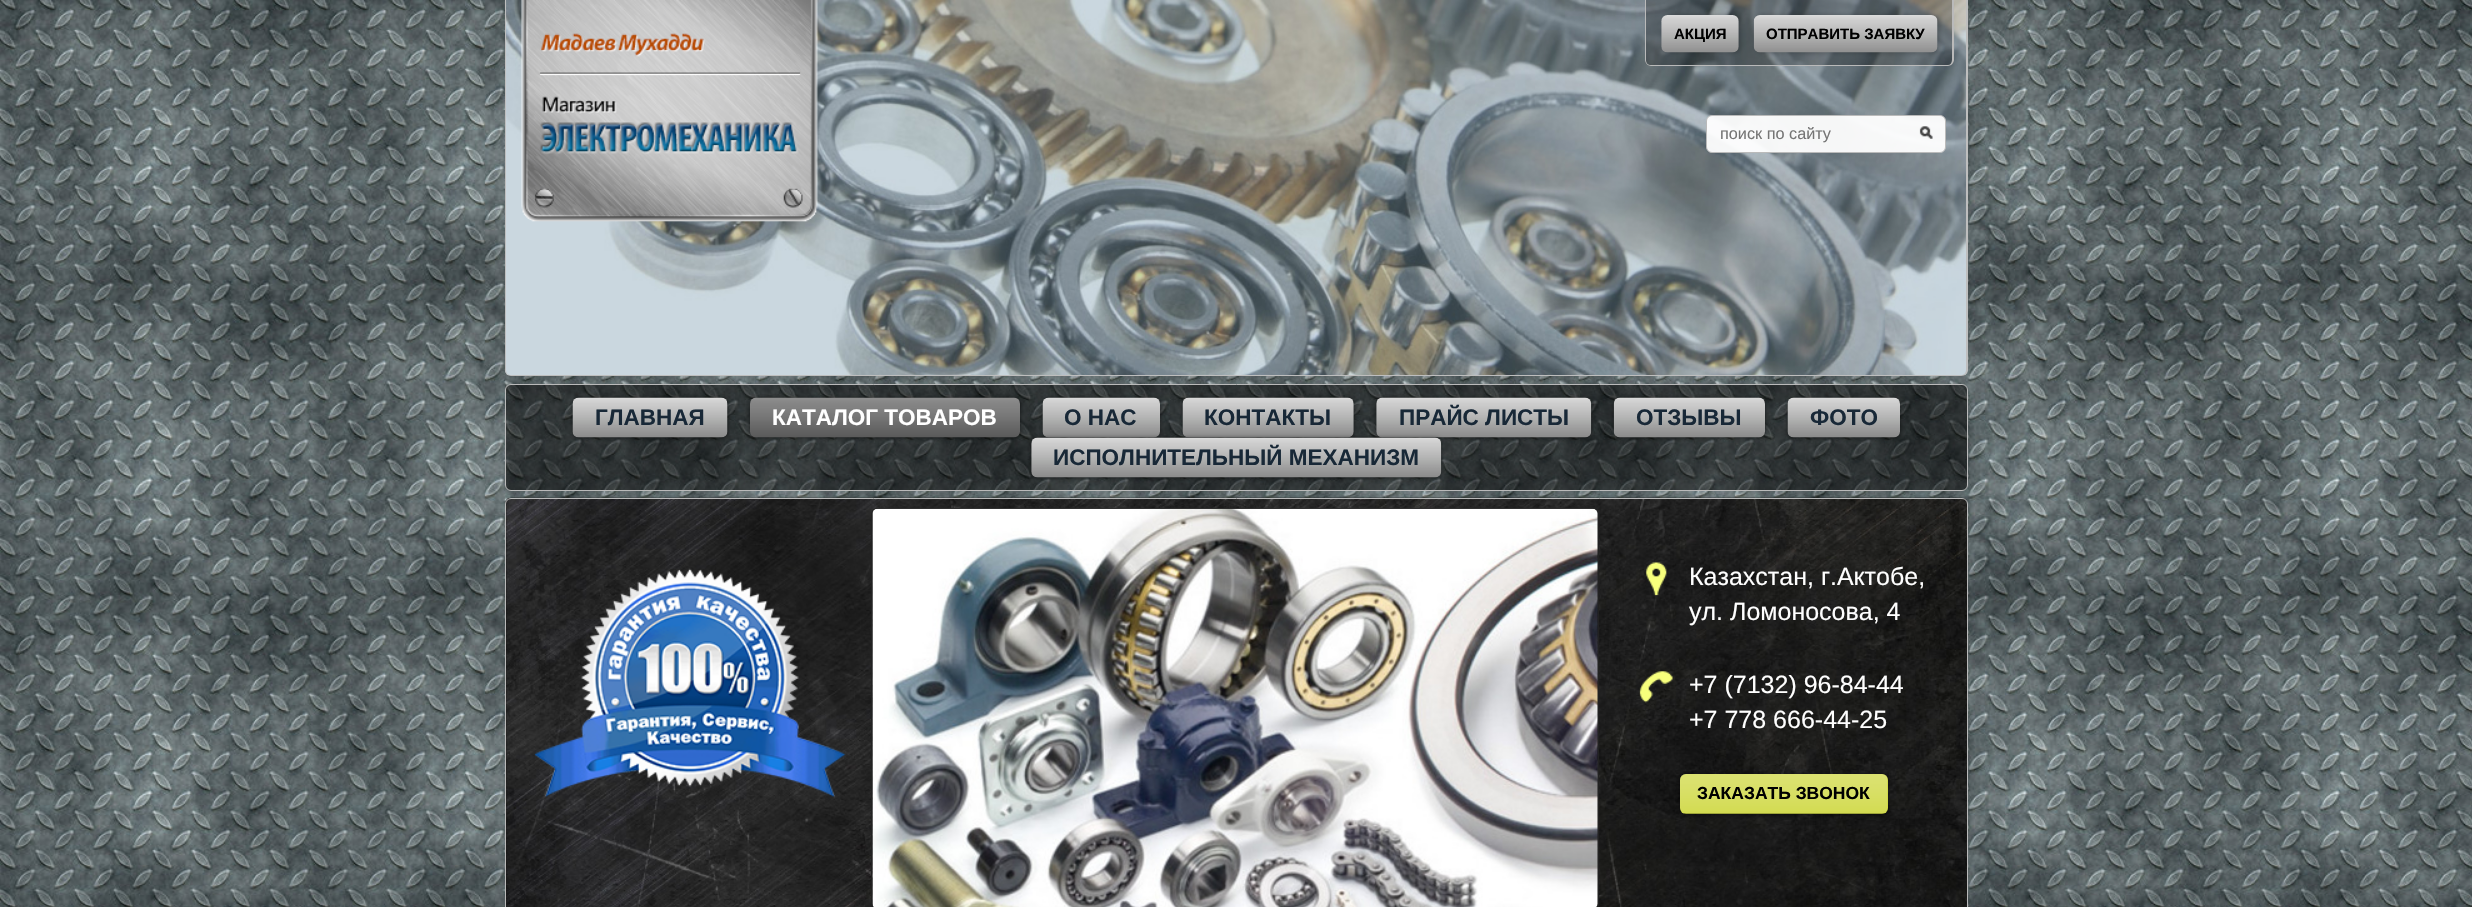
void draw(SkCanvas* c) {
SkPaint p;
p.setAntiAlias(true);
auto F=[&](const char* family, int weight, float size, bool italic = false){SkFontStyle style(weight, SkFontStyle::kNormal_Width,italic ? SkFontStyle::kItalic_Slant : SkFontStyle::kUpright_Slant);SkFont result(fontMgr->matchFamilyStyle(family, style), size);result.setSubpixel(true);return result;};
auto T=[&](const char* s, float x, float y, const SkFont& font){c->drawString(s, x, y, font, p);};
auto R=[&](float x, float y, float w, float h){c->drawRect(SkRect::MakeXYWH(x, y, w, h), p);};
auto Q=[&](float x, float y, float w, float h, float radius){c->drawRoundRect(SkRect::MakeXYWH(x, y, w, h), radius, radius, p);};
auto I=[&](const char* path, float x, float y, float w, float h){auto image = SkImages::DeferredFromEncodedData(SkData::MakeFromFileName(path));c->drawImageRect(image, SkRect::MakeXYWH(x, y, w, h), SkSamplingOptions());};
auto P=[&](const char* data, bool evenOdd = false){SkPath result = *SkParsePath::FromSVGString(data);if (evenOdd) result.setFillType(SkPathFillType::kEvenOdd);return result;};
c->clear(0xffffffff);
I("1.png",0,0,2472,907);
I("2.png",505,0,1463,375);
p.setColor(0xffbebebe);
c->drawPath(P("M505 0h1463v370c0 3-3 6-7 6h-1450c-3 0-6-3-6-6zm1 0h1460v370c0 3-2 5-5 5h-1450c-3 0-5-2-5-5z",true),p);
I("3.png",521,0,297,222);
p.setColor(0x40000000);
c->drawPath(P("M1645 0h309v60c0 3.5-2.5 6-6 6h-297c-3.5 0-6-2.5-6-6z"),p);
p.setColor(0xffbababa);
c->drawPath(P("M1645 0h309v60c0 3-3 6-6 6h-297c-3 0-6-3-6-6zm1 0h306v60c0 3-2 5-4 5h-297c-3 0-5-2-5-5z",true),p);
p.setColor(0x33000000);
p.setMaskFilter(SkMaskFilter::MakeBlur(kNormal_SkBlurStyle, 2));
c->drawRoundRect(SkRect::MakeXYWH(1664,15,77,38),6,6,p);
p.setMaskFilter(nullptr);
I("4.png",1661,15,78,38);
auto f1 = F("Liberation Sans",700,15);
p.setColor(0xff000000);
T("АКЦИЯ",1674,39,f1);
p.setColor(0x33000000);
p.setMaskFilter(SkMaskFilter::MakeBlur(kNormal_SkBlurStyle, 2));
c->drawRoundRect(SkRect::MakeXYWH(1756,15,184,38),6,6,p);
p.setMaskFilter(nullptr);
I("5.png",1753,15,185,38);
p.setColor(0xff000000);
T("ОТПРАВИТЬ ЗАЯВКУ",1766,39,f1);
p.setColor(0xf0ffffff);
c->drawRoundRect(SkRect::MakeXYWH(1706.5,115.5,239,37),5.5,5.5,p);
p.setStroke(true);
p.setStrokeWidth(1);
p.setColor(0xffbababa);
c->drawRoundRect(SkRect::MakeXYWH(1706.5,115.5,239,37),5.5,5.5,p);
auto f2 = F("Liberation Sans",400,16.25);
p.setStroke(false);
p.setColor(0xff757575);
T("поиск по сайту",1720,139,f2);
I("6.png",1919,126,14,13);
p.setColor(0x80000000);
c->drawRoundRect(SkRect::MakeXYWH(505.5,384.5,1462,106),5.5,5.5,p);
p.setStroke(true);
p.setColor(0xffbababa);
c->drawRoundRect(SkRect::MakeXYWH(505.5,384.5,1462,106),5.5,5.5,p);
p.setStroke(false);
p.setColor(0x80000000);
p.setMaskFilter(SkMaskFilter::MakeBlur(kNormal_SkBlurStyle, 2));
c->drawRoundRect(SkRect::MakeXYWH(573,398,155,40),6,6,p);
p.setMaskFilter(nullptr);
I("7.png",572,397,156,41);
auto f3 = F("Liberation Sans",700,22.5);
p.setColor(0xff182837);
T("ГЛАВНАЯ",595,425,f3);
p.setColor(0x80000000);
p.setMaskFilter(SkMaskFilter::MakeBlur(kNormal_SkBlurStyle, 2));
c->drawRoundRect(SkRect::MakeXYWH(750,398,270,40),6,6,p);
p.setMaskFilter(nullptr);
I("8.png",750,397,270,41);
p.setColor(0xffffffff);
T("КАТАЛОГ ТОВАРОВ",772,425,f3);
p.setColor(0x80000000);
p.setMaskFilter(SkMaskFilter::MakeBlur(kNormal_SkBlurStyle, 2));
c->drawRoundRect(SkRect::MakeXYWH(1043,398,117,40),6,6,p);
p.setMaskFilter(nullptr);
I("9.png",1042,397,118,41);
p.setColor(0xff182837);
T("О НАС",1064,425,f3);
p.setColor(0x80000000);
p.setMaskFilter(SkMaskFilter::MakeBlur(kNormal_SkBlurStyle, 2));
c->drawRoundRect(SkRect::MakeXYWH(1183,398,171,40),6,6,p);
p.setMaskFilter(nullptr);
I("10.png",1182,397,172,41);
p.setColor(0xff182837);
T("КОНТАКТЫ",1204,425,f3);
p.setColor(0x80000000);
p.setMaskFilter(SkMaskFilter::MakeBlur(kNormal_SkBlurStyle, 2));
c->drawRoundRect(SkRect::MakeXYWH(1376,398,215,40),6,6,p);
p.setMaskFilter(nullptr);
I("11.png",1376,397,216,41);
p.setColor(0xff182837);
T("ПРАЙС ЛИСТЫ",1399,425,f3);
p.setColor(0x80000000);
p.setMaskFilter(SkMaskFilter::MakeBlur(kNormal_SkBlurStyle, 2));
c->drawRoundRect(SkRect::MakeXYWH(1614,398,151,40),6,6,p);
p.setMaskFilter(nullptr);
I("12.png",1613,397,152,41);
p.setColor(0xff182837);
T("ОТЗЫВЫ",1636,425,f3);
p.setColor(0x80000000);
p.setMaskFilter(SkMaskFilter::MakeBlur(kNormal_SkBlurStyle, 2));
c->drawRoundRect(SkRect::MakeXYWH(1788,398,112,40),6,6,p);
p.setMaskFilter(nullptr);
I("13.png",1787,397,113,41);
p.setColor(0xff182837);
T("ФОТО",1810,425,f3);
p.setColor(0x80000000);
p.setMaskFilter(SkMaskFilter::MakeBlur(kNormal_SkBlurStyle, 2));
c->drawRoundRect(SkRect::MakeXYWH(1031,438,410,40),6,6,p);
p.setMaskFilter(nullptr);
I("14.png",1031,437,411,41);
p.setColor(0xff182837);
T("ИСПОЛНИТЕЛЬНЫЙ МЕХАНИЗМ",1053,465,f3);
I("15.png",505,497,1463,410);
p.setStroke(true);
p.setColor(0xffbababa);
c->drawRoundRect(SkRect::MakeXYWH(505.5,498.5,1462,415),5.5,5.5,p);
I("16.png",534,568,312,230);
p.setColor(0xff222222);
c->drawRoundRect(SkRect::MakeXYWH(871.5,508.5,727,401),5.5,5.5,p);
I("17.png",872,508,726,399);
I("18.png",1646,562,21,34);
auto f4 = F("Liberation Sans",400,25);
p.setStroke(false);
p.setColor(0xffffffff);
T("Казахстан, г.Актобе,",1689,585,f4);
T("ул. Ломоносова, 4",1689,620,f4);
I("19.png",1639,671,34,32);
T("+7 (7132) 96-84-44",1689,693,f4);
T("+7 778 666-44-25",1689,728,f4);
p.setColor(0x80000000);
p.setMaskFilter(SkMaskFilter::MakeBlur(kNormal_SkBlurStyle, 2));
c->drawRoundRect(SkRect::MakeXYWH(1680,775,208,40),6,6,p);
p.setMaskFilter(nullptr);
p.setColor(0xffcfd841);
Q(1680,774,208,40,6);
I("20.png",1680,774,208,40);
p.setColor(0x40000000);
R(1684,813,201,1);
auto f5 = F("Liberation Sans",700,17.5);
p.setColor(0xff000000);
T("ЗАКАЗАТЬ ЗВОНОК",1697,799,f5);
}
